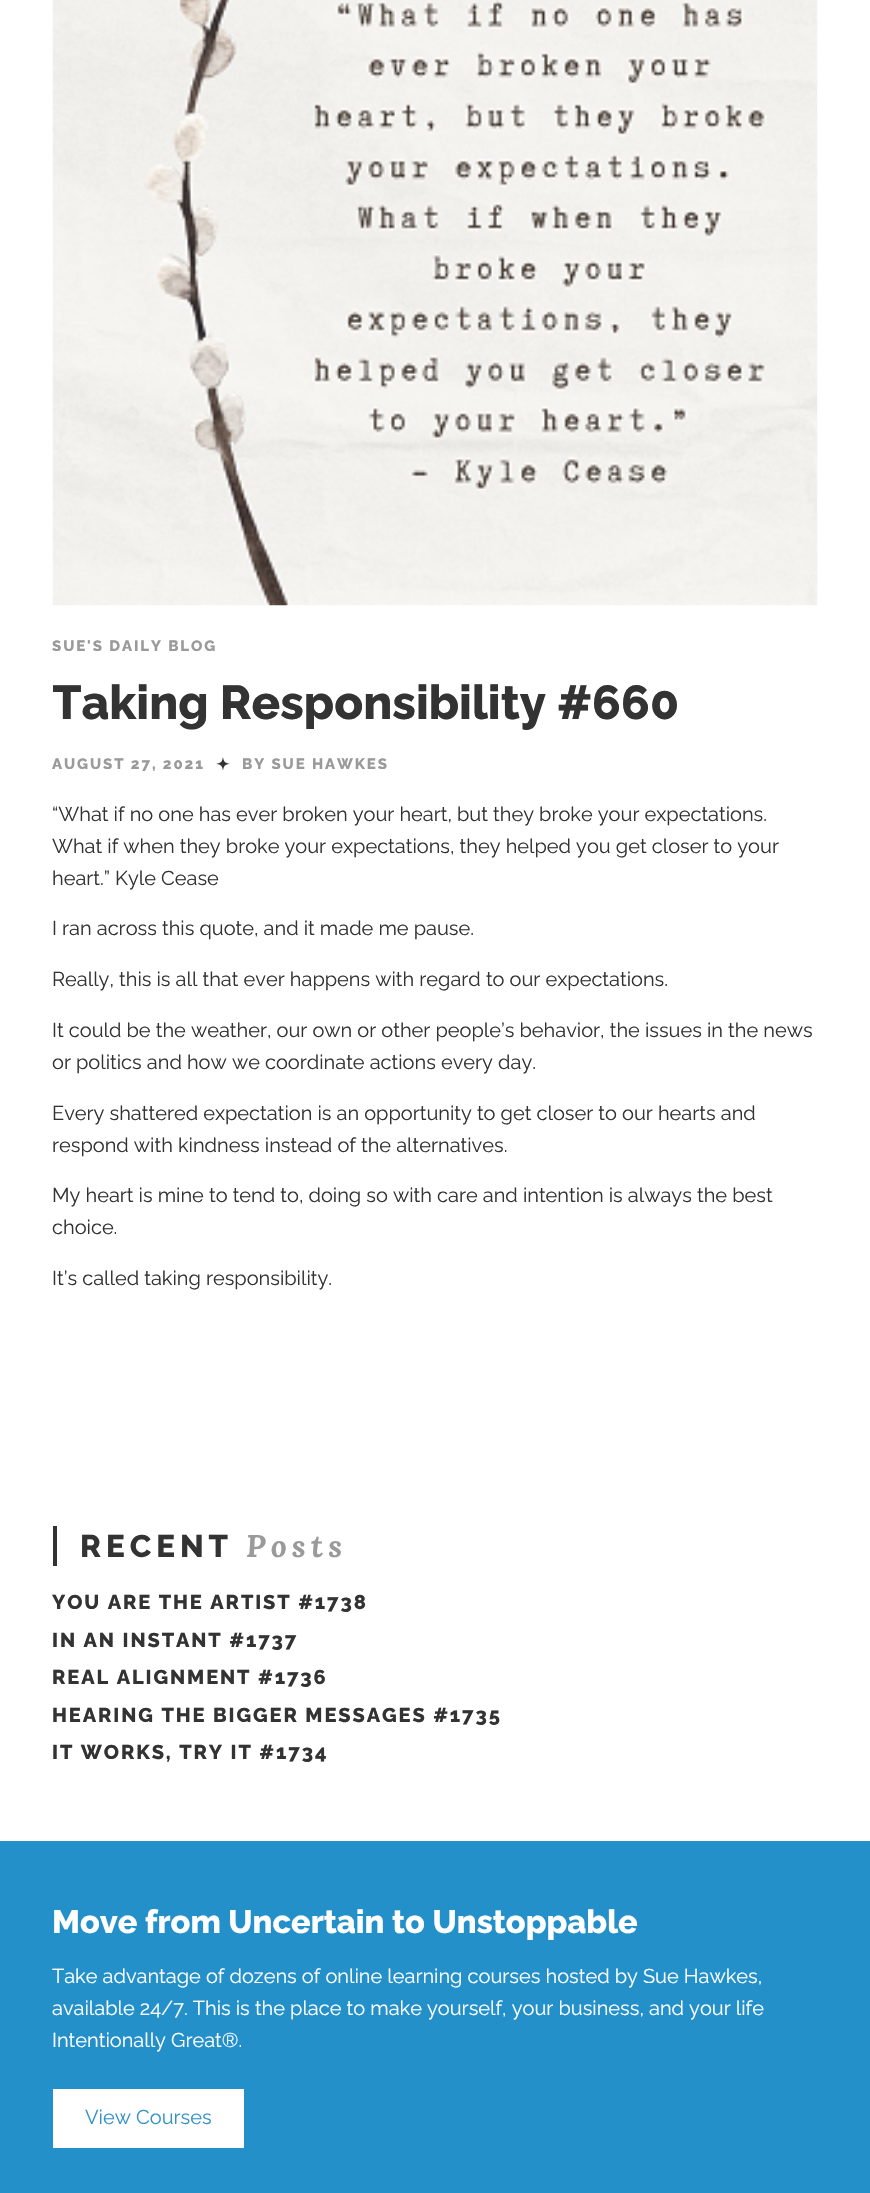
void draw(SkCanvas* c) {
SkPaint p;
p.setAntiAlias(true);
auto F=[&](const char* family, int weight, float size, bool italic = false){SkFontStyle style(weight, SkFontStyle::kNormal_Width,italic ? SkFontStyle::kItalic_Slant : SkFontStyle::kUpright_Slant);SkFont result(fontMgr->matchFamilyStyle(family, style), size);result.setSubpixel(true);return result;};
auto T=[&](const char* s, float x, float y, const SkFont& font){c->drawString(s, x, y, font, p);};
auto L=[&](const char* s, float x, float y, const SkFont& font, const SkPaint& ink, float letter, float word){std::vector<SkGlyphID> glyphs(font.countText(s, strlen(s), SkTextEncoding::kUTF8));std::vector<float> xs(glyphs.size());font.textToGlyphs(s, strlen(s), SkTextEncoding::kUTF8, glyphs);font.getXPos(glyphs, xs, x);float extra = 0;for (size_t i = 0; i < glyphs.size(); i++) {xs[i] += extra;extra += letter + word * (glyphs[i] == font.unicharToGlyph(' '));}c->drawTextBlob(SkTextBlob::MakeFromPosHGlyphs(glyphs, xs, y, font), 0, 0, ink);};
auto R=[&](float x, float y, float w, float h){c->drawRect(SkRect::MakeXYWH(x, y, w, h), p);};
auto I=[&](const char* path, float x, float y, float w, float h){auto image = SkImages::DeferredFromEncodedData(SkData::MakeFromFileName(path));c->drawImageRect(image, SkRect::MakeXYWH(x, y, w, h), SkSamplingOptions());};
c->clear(0xffffffff);
I("1.png",52,0,766,606);
auto f1 = F("Raleway",800,15);
p.setColor(0xff9a9a9a);
L("SUE'S DAILY BLOG",52,651,f1,p,1.9,0);
c->save();
c->clipRect(SkRect::MakeXYWH(53,0,765,798));
auto f2 = F("Raleway",800,47.5);
p.setColor(0xff333333);
T("Taking Responsibility #660",52,719,f2);
c->restore();
p.setColor(0xff9a9a9a);
L("AUGUST 27, 2021",52,769,f1,p,1.9,0);
I("2.png",216,757,14,14);
L("BY SUE HAWKES",242,769,f1,p,1.9,0);
auto f3 = F("Raleway",400,20);
p.setColor(0xff333333);
T("“What if no one has ever broken your heart, but they broke your expectations.",52,821,f3);
T("What if when they broke your expectations, they helped you get closer to your",52,853,f3);
T("heart.” Kyle Cease",52,885,f3);
T("I ran across this quote, and it made me pause.",52,935,f3);
T("Really, this is all that ever happens with regard to our expectations.",52,986,f3);
T("It could be the weather, our own or other people’s behavior, the issues in the news",52,1037,f3);
T("or politics and how we coordinate actions every day.",52,1069,f3);
T("Every shattered expectation is an opportunity to get closer to our hearts and",52,1120,f3);
T("respond with kindness instead of the alternatives.",52,1152,f3);
T("My heart is mine to tend to, doing so with care and intention is always the best",52,1202,f3);
T("choice.",52,1234,f3);
T("It’s called taking responsibility.",52,1285,f3);
R(53,1526,4,40);
auto f4 = F("Raleway",800,31.25);
L("RECENT",80,1557,f4,p,5,0);
auto f5 = F("Lora",700,31.25,true);
p.setColor(0xff9a9a9a);
L("Posts",246,1557,f5,p,5,0);
auto f6 = F("Raleway",800,20);
p.setColor(0xff333333);
L("YOU ARE THE ARTIST #1738",52,1609,f6,p,1.9,0);
L("IN AN INSTANT #1737",52,1647,f6,p,1.9,0);
L("REAL ALIGNMENT #1736",52,1684,f6,p,1.9,0);
L("HEARING THE BIGGER MESSAGES #1735",52,1722,f6,p,1.9,0);
L("IT WORKS, TRY IT #1734",52,1759,f6,p,1.9,0);
p.setColor(0xff2390ca);
R(0,1841,870,352);
auto f7 = F("Raleway",800,32.5);
p.setColor(0xffffffff);
T("Move from Uncertain to Unstoppable",52,1933,f7);
T("Take advantage of dozens of online learning courses hosted by Sue Hawkes,",52,1983,f3);
T("available 24/7. This is the place to make yourself, your business, and your life",52,2015,f3);
T("Intentionally Great®.",52,2047,f3);
R(53,2089,191,59);
p.setColor(0xff3392c8);
T("View Courses",85,2124,f3);
}
